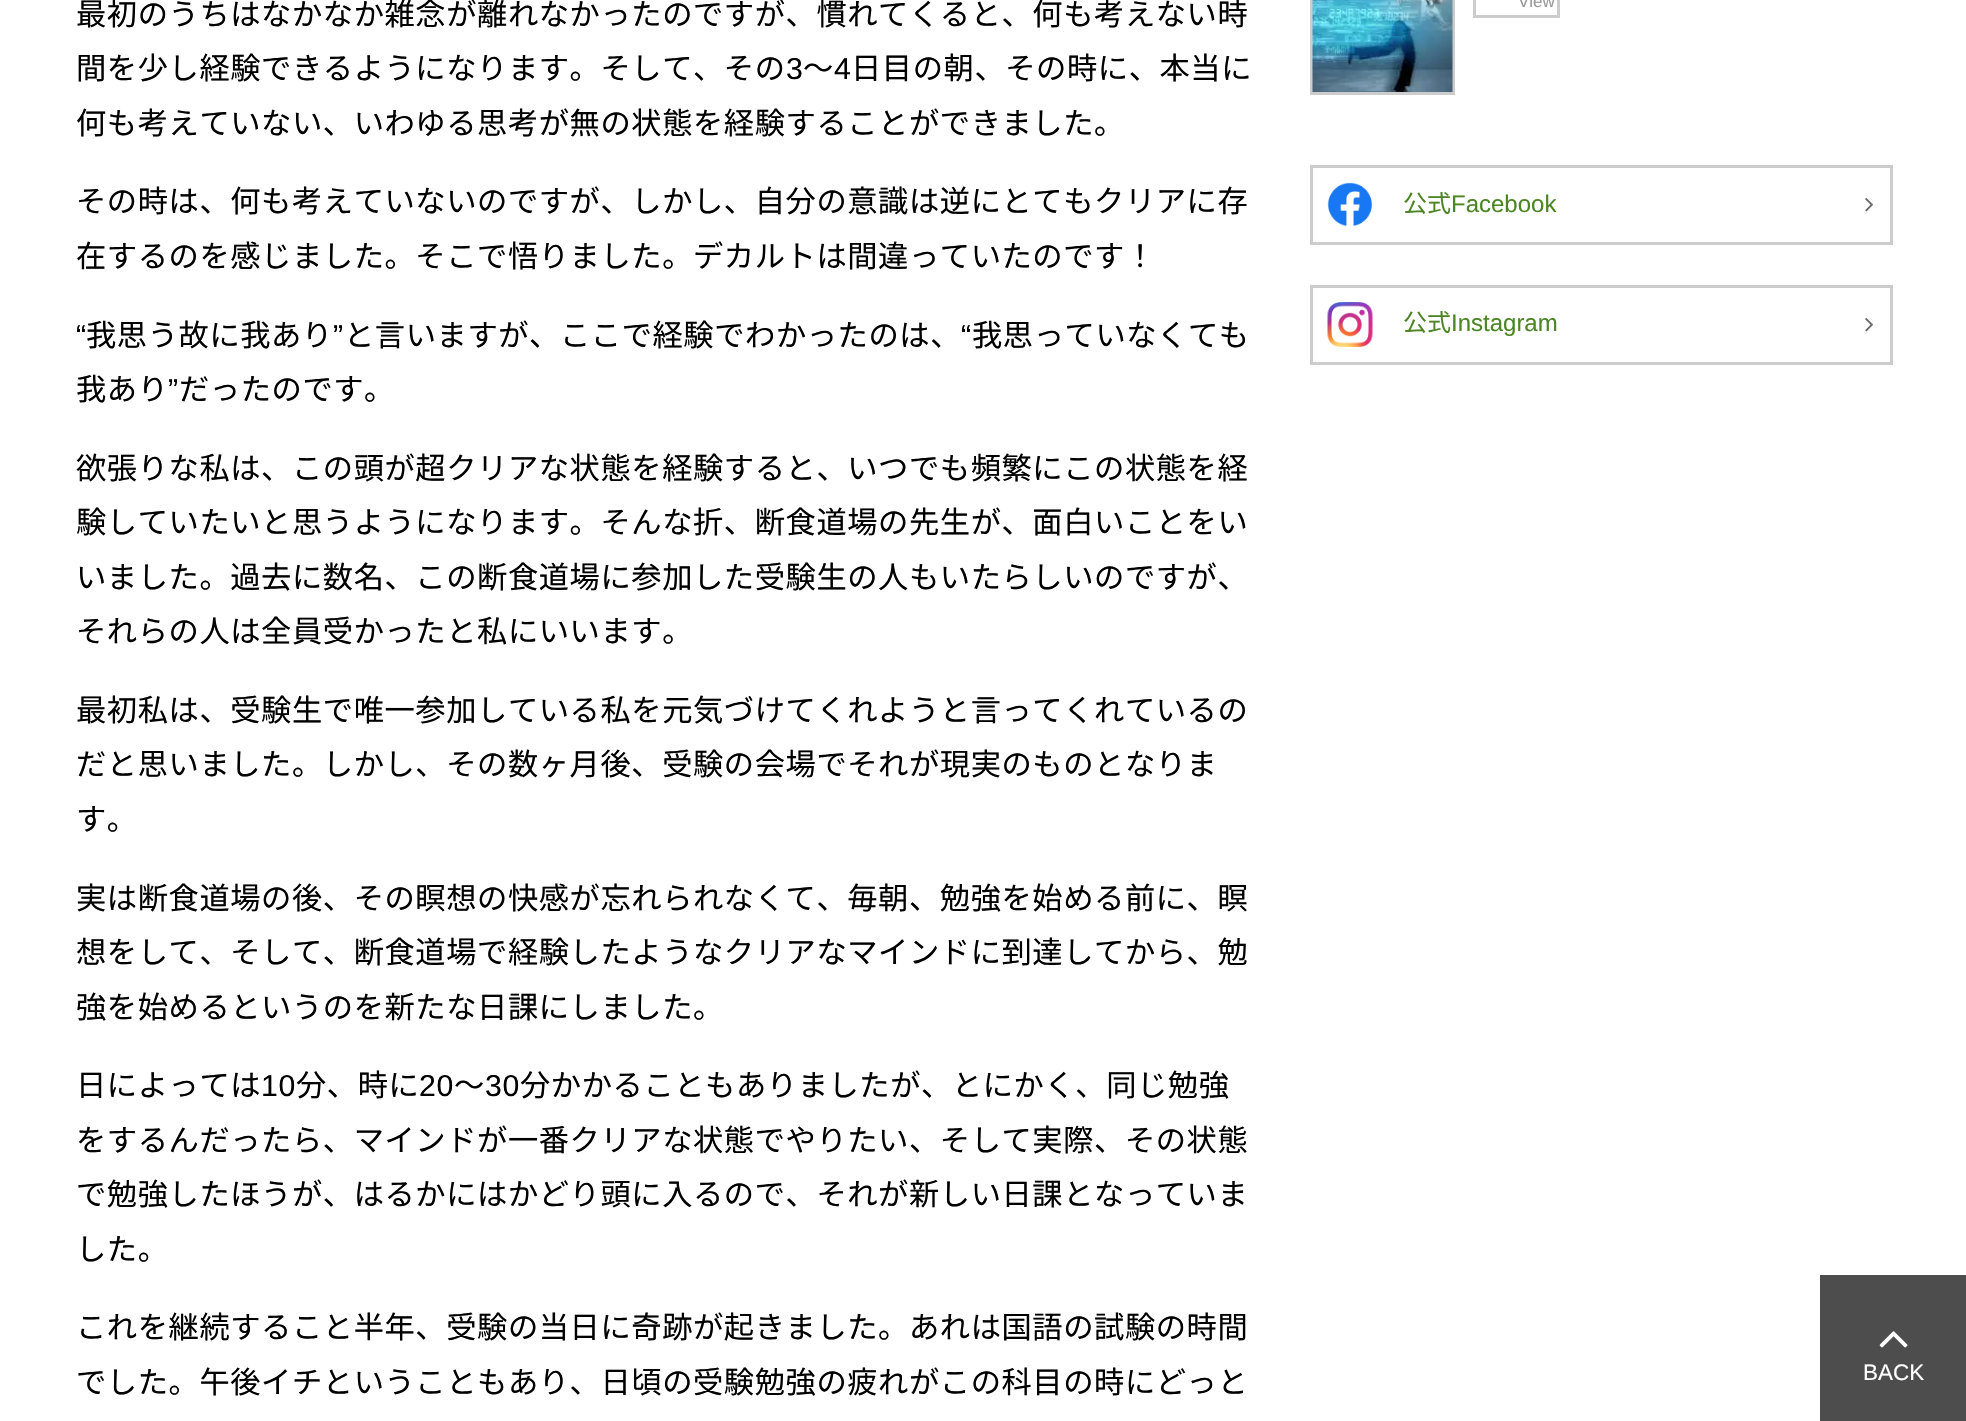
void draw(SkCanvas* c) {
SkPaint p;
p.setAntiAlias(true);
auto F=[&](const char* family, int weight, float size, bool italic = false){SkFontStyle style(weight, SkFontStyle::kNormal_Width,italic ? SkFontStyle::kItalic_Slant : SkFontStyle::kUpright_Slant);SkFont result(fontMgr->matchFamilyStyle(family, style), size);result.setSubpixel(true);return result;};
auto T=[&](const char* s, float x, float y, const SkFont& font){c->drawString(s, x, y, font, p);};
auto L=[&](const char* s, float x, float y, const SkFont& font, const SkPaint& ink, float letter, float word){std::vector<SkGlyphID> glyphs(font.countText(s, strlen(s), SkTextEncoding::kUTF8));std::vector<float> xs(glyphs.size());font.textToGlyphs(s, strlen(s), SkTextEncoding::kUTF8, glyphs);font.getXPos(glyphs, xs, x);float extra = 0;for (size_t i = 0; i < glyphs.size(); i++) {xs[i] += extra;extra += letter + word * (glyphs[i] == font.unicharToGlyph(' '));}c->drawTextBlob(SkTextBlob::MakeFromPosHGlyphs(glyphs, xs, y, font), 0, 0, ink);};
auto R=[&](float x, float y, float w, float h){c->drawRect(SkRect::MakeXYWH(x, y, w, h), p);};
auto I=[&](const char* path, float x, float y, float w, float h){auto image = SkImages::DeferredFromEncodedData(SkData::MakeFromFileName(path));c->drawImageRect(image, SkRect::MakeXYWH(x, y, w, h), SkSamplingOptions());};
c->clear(0xffffffff);
auto f1 = F("Noto Sans JP",400,30.25);
p.setColor(0xff000000);
L("最初のうちはなかなか雑念が離れなかったのですが、慣れてくると、何も考えない時",76,25,f1,p,.6,0);
L("間を少し経験できるようになります。そして、その",76,79,f1,p,.6,0);
auto f2 = F("Liberation Sans",400,30.25);
L("3",786,79,f2,p,.6,0);
L("〜",803,79,f1,p,.6,0);
L("4",834,79,f2,p,.6,0);
L("日目の朝、その時に、本当に",851,79,f1,p,.6,0);
L("何も考えていない、いわゆる思考が無の状態を経験することができました。",76,134,f1,p,.6,0);
L("その時は、何も考えていないのですが、しかし、自分の意識は逆にとてもクリアに存",76,212,f1,p,.6,0);
L("在するのを感じました。そこで悟りました。デカルトは間違っていたのです！",76,267,f1,p,.6,0);
L("“",76,346,f2,p,.6,0);
L("我思う故に我あり",86,346,f1,p,.6,0);
L("”",333,346,f2,p,.6,0);
L("と言いますが、ここで経験でわかったのは、",344,346,f1,p,.6,0);
L("“",961,346,f2,p,.6,0);
L("我思っていなくても",972,346,f1,p,.6,0);
L("我あり",76,400,f1,p,.6,0);
L("”",168,400,f2,p,.6,0);
L("だったのです。",179,400,f1,p,.6,0);
L("欲張りな私は、この頭が超クリアな状態を経験すると、いつでも頻繁にこの状態を経",76,479,f1,p,.6,0);
L("験していたいと思うようになります。そんな折、断食道場の先生が、面白いことをい",76,533,f1,p,.6,0);
L("いました。過去に数名、この断食道場に参加した受験生の人もいたらしいのですが、",76,588,f1,p,.6,0);
L("それらの人は全員受かったと私にいいます。",76,642,f1,p,.6,0);
L("最初私は、受験生で唯一参加している私を元気づけてくれようと言ってくれているの",76,721,f1,p,.6,0);
L("だと思いました。しかし、その数ヶ月後、受験の会場でそれが現実のものとなりま",76,775,f1,p,.6,0);
L("す。",76,830,f1,p,.6,0);
L("実は断食道場の後、その瞑想の快感が忘れられなくて、毎朝、勉強を始める前に、瞑",76,909,f1,p,.6,0);
L("想をして、そして、断食道場で経験したようなクリアなマインドに到達してから、勉",76,963,f1,p,.6,0);
L("強を始めるというのを新たな日課にしました。",76,1018,f1,p,.6,0);
L("日によっては",76,1096,f1,p,.6,0);
L("10",261,1096,f2,p,.6,0);
L("分、時に",296,1096,f1,p,.6,0);
L("20",419,1096,f2,p,.6,0);
L("〜",454,1096,f1,p,.6,0);
L("30",485,1096,f2,p,.6,0);
L("分かかることもありましたが、とにかく、同じ勉強",520,1096,f1,p,.6,0);
L("をするんだったら、マインドが一番クリアな状態でやりたい、そして実際、その状態",76,1151,f1,p,.6,0);
L("で勉強したほうが、はるかにはかどり頭に入るので、それが新しい日課となっていま",76,1205,f1,p,.6,0);
L("した。",76,1260,f1,p,.6,0);
L("これを継続すること半年、受験の当日に奇跡が起きました。あれは国語の試験の時間",76,1338,f1,p,.6,0);
L("でした。午後イチということもあり、日頃の受験勉強の疲れがこの科目の時にどっと",76,1393,f1,p,.6,0);
p.setStroke(true);
p.setStrokeWidth(3);
p.setColor(0xffcccccc);
c->drawRect(SkRect::MakeXYWH(1311.5,-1.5,142,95),p);
I("1.png",1312,0,141,92);
c->drawRect(SkRect::MakeXYWH(1474.5,-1.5,84,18),p);
auto f3 = F("Liberation Sans",400,17);
p.setStroke(false);
p.setColor(0xff999999);
T("View",1518,7,f3);
p.setStroke(true);
p.setColor(0xffcccccc);
c->drawRect(SkRect::MakeXYWH(1311.5,166.5,580,77),p);
I("2.png",1327,182,46,45);
auto f4 = F("Noto Sans JP",400,24);
p.setStroke(false);
p.setColor(0xff4c8624);
T("公式",1403,212,f4);
auto f5 = F("Liberation Sans",400,24);
T("Facebook",1451,212,f5);
I("3.png",1865,198,8,14);
p.setStroke(true);
p.setColor(0xffcccccc);
c->drawRect(SkRect::MakeXYWH(1311.5,286.5,580,77),p);
I("4.png",1327,302,46,45);
p.setStroke(false);
p.setColor(0xff4c8624);
T("公式",1403,331,f4);
T("Instagram",1451,331,f5);
I("3.png",1865,318,8,14);
p.setColor(0xff4d4d4d);
R(1820,1275,146,146);
I("5.png",1879,1331,29,17);
auto f6 = F("Liberation Sans",400,22.5);
p.setColor(0xffffffff);
T("BACK",1863,1380,f6);
}
